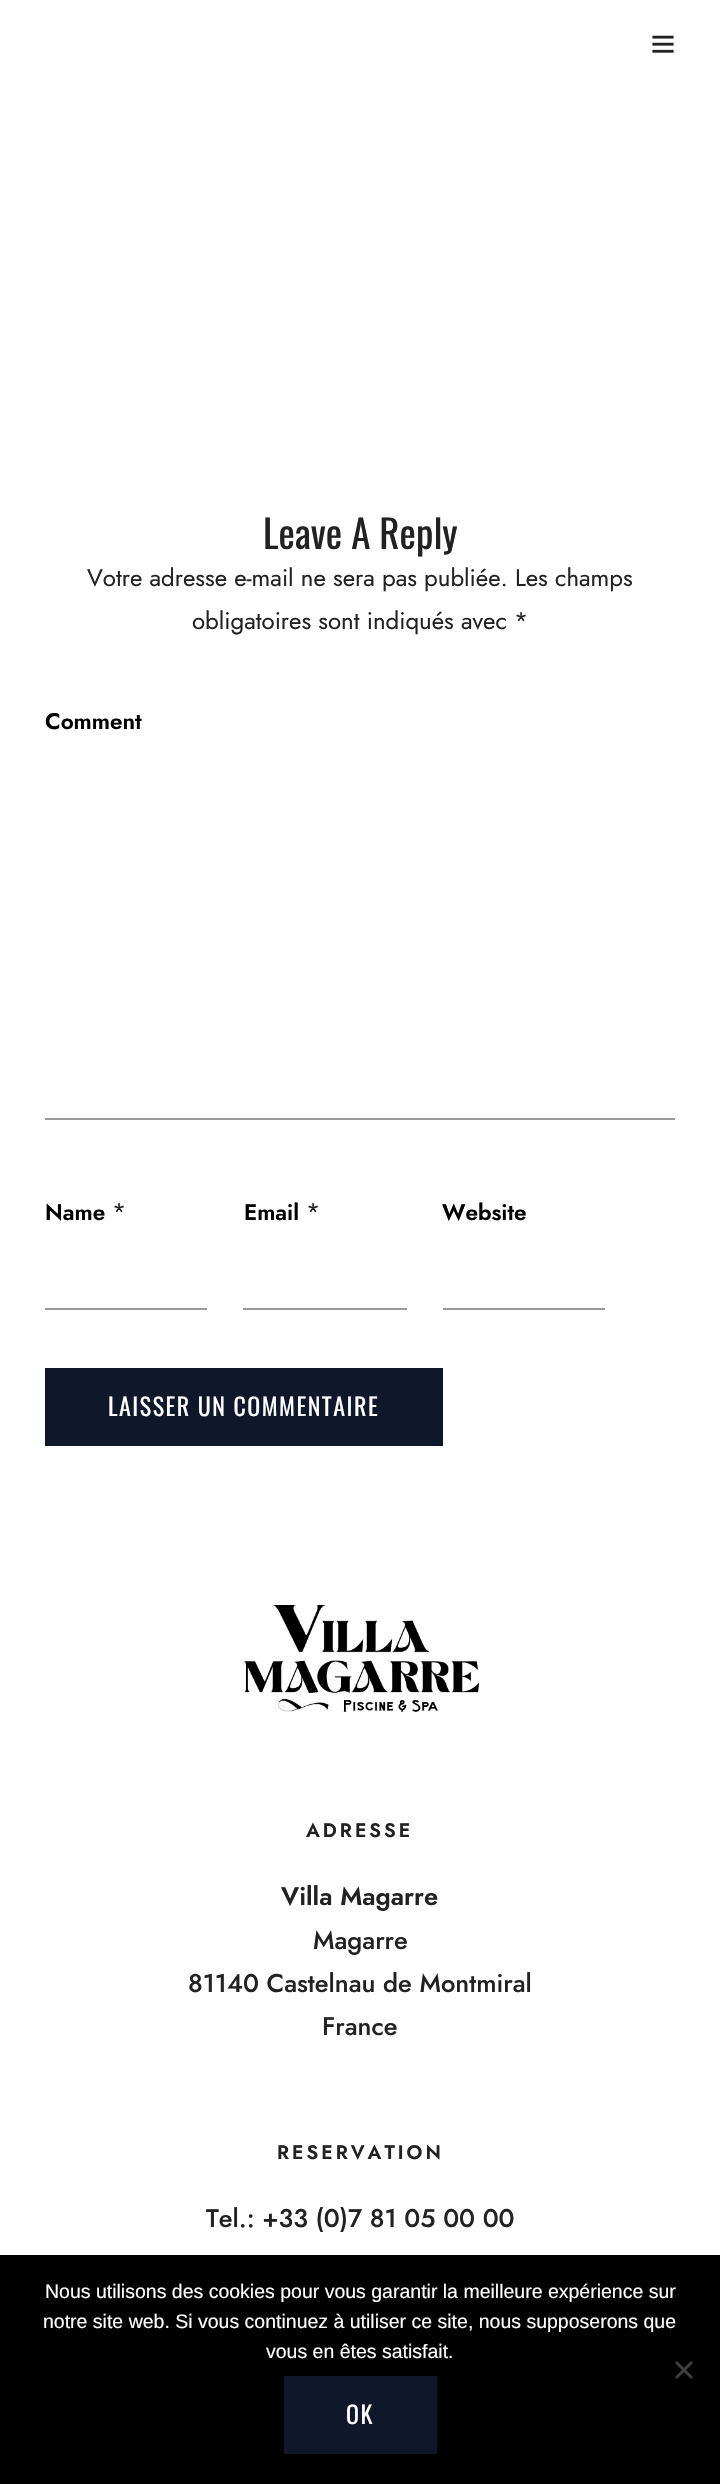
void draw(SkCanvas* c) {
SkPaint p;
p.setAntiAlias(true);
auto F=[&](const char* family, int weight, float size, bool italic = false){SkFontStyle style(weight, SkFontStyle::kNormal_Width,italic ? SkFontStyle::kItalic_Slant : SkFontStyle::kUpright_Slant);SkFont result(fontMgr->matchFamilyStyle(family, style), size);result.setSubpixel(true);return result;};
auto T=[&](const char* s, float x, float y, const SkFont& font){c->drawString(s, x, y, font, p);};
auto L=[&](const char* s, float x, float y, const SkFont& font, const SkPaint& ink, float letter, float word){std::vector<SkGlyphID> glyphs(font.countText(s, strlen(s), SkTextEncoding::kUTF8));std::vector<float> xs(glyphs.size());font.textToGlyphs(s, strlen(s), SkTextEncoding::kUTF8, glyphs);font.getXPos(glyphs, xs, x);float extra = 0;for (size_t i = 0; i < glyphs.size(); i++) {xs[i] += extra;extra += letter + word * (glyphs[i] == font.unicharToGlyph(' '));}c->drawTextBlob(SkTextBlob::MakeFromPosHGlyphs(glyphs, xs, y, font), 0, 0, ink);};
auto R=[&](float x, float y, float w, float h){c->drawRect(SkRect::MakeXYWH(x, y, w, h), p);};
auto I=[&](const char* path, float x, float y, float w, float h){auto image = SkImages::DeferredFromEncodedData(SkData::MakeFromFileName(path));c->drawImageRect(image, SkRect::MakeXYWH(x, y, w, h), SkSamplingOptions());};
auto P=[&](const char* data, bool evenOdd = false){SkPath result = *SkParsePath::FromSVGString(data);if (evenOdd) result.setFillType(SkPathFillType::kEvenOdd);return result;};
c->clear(0xffffffff);
I("1.png",652,35,22,18);
auto f1 = F("Oswald",400,39);
p.setColor(0xff222222);
T("Leave A Reply",263,549,f1);
auto f2 = F("Jost",400,24);
T("Votre adresse e-mail ne sera pas publiée. Les champs",87,586,f2);
T("obligatoires sont indiqués avec *",192,629,f2);
auto f3 = F("Jost",600,22.5);
p.setColor(0xff000000);
T("Comment",45,729,f3);
p.setColor(0xff999999);
R(45,1118,630,2);
p.setColor(0xff000000);
T("Name",45,1220,f3);
p.setColor(0xff222222);
T("*",112,1220,f2);
p.setColor(0xff999999);
R(45,1308,162,2);
p.setColor(0xff000000);
T("Email",244,1220,f3);
p.setColor(0xff222222);
T("*",306,1220,f2);
p.setColor(0xff999999);
R(243,1308,164,2);
p.setColor(0xff000000);
T("Website",442,1220,f3);
p.setColor(0xff999999);
R(443,1308,162,2);
p.setColor(0xff0f172b);
R(45,1368,398,78);
auto f4 = F("Oswald",400,24);
p.setColor(0xffffffff);
L("LAISSER UN COMMENTAIRE",108,1416,f4,p,1.5,0);
I("2.png",244,1605,236,107);
auto f5 = F("Jost",600,19.5);
p.setColor(0xff222222);
L("ADRESSE",306,1837,f5,p,3,0);
auto f6 = F("Jost",600,25.5);
T("Villa Magarre",281,1905,f6);
auto f7 = F("Jost",500,25.5);
T("Magarre",313,1949,f7);
T("81140 Castelnau de Montmiral",188,1992,f7);
T("France",322,2035,f7);
L("RESERVATION",277,2159,f5,p,3,0);
T("Tel.: +33 (0)7 81 05 00 00",206,2227,f7);
p.setColor(0xff000000);
R(0,2255,720,229);
auto f8 = F("Liberation Sans",400,19.5);
p.setColor(0xffffffff);
T("Nous utilisons des cookies pour vous garantir la meilleure expérience sur",45,2298,f8);
T("notre site web. Si vous continuez à utiliser ce site, nous supposerons que",43,2328,f8);
T("vous en êtes satisfait.",266,2358,f8);
p.setColor(0xff404040);
c->drawPath(P("M691 2361l2 2l-16 16l-2-2z"),p);
c->drawPath(P("M675 2363l2-2l16 16l-2 2z"),p);
p.setColor(0xff0f172b);
R(284,2376,153,78);
p.setColor(0xffffffff);
L("OK",346,2424,f4,p,1.5,0);
}
